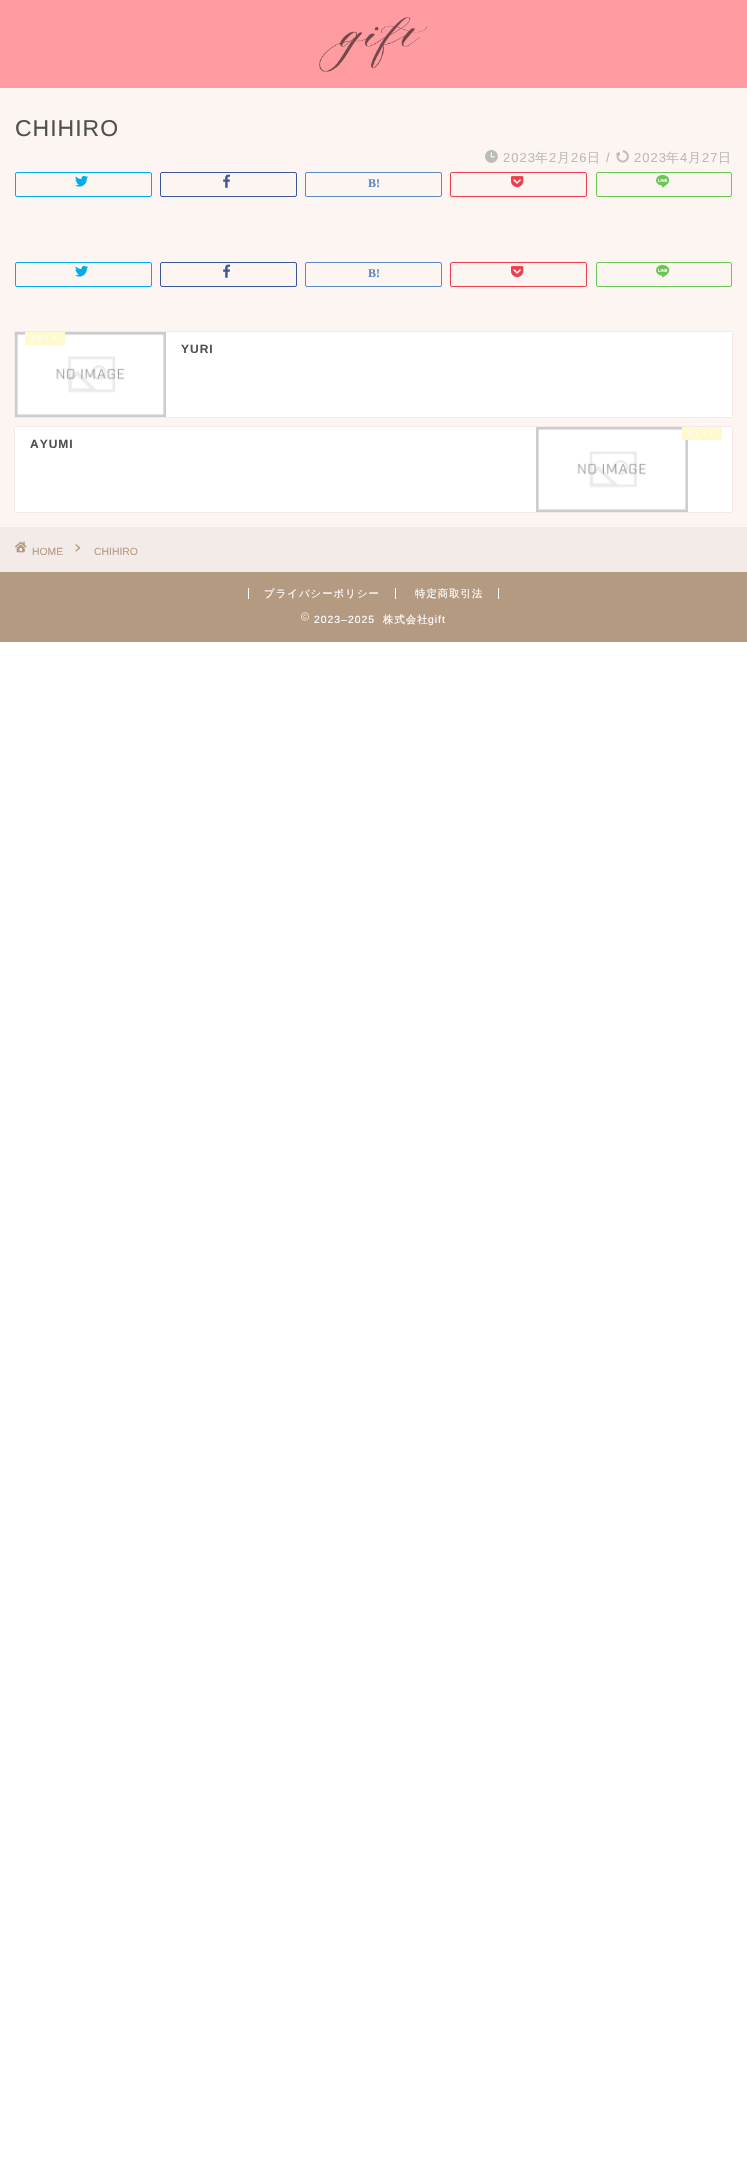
void draw(SkCanvas* c) {
SkPaint p;
p.setAntiAlias(true);
auto F=[&](const char* family, int weight, float size, bool italic = false){SkFontStyle style(weight, SkFontStyle::kNormal_Width,italic ? SkFontStyle::kItalic_Slant : SkFontStyle::kUpright_Slant);SkFont result(fontMgr->matchFamilyStyle(family, style), size);result.setSubpixel(true);return result;};
auto T=[&](const char* s, float x, float y, const SkFont& font){c->drawString(s, x, y, font, p);};
auto L=[&](const char* s, float x, float y, const SkFont& font, const SkPaint& ink, float letter, float word){std::vector<SkGlyphID> glyphs(font.countText(s, strlen(s), SkTextEncoding::kUTF8));std::vector<float> xs(glyphs.size());font.textToGlyphs(s, strlen(s), SkTextEncoding::kUTF8, glyphs);font.getXPos(glyphs, xs, x);float extra = 0;for (size_t i = 0; i < glyphs.size(); i++) {xs[i] += extra;extra += letter + word * (glyphs[i] == font.unicharToGlyph(' '));}c->drawTextBlob(SkTextBlob::MakeFromPosHGlyphs(glyphs, xs, y, font), 0, 0, ink);};
auto R=[&](float x, float y, float w, float h){c->drawRect(SkRect::MakeXYWH(x, y, w, h), p);};
auto I=[&](const char* path, float x, float y, float w, float h){auto image = SkImages::DeferredFromEncodedData(SkData::MakeFromFileName(path));c->drawImageRect(image, SkRect::MakeXYWH(x, y, w, h), SkSamplingOptions());};
auto P=[&](const char* data, bool evenOdd = false){SkPath result = *SkParsePath::FromSVGString(data);if (evenOdd) result.setFillType(SkPathFillType::kEvenOdd);return result;};
c->clear(0xffffffff);
p.setColor(0xfffcf5f2);
R(0,88,747,439);
p.setColor(0xfffe9ca2);
R(0,0,747,88);
I("1.png",319,17,108,55);
auto f1 = F("Liberation Sans",400,23);
p.setColor(0xff515151);
L("CHIHIRO",15,136,f1,p,1,0);
I("2.png",485,150,13,13);
auto f2 = F("Liberation Sans",400,13);
p.setColor(0xffbbbbbb);
L("2023",503,162,f2,p,1,0);
auto f3 = F("WenQuanYi Zen Hei",500,13);
L("年",535,162,f3,p,1,0);
L("2",549,162,f2,p,1,0);
L("月",557,162,f3,p,1,0);
L("26",571,162,f2,p,1,0);
L("日",587,162,f3,p,1,0);
L("/",606,162,f2,p,1,0);
I("3.png",616,150,13,13);
L("2023",634,162,f2,p,1,0);
L("年",666,162,f3,p,1,0);
L("4",680,162,f2,p,1,0);
L("月",688,162,f3,p,1,0);
L("27",702,162,f2,p,1,0);
L("日",718,162,f3,p,1,0);
p.setStroke(true);
p.setStrokeWidth(1);
p.setColor(0xff00acee);
c->drawRoundRect(SkRect::MakeXYWH(15.5,172.5,136,24),1.5,1.5,p);
I("4.png",75,175,13,12);
p.setColor(0xff3b5998);
c->drawRoundRect(SkRect::MakeXYWH(160.5,172.5,136,24),1.5,1.5,p);
I("5.png",223,174,8,14);
p.setColor(0xff5d8ac1);
c->drawRoundRect(SkRect::MakeXYWH(305.5,172.5,136,24),1.5,1.5,p);
auto f4 = F("Liberation Serif",700,12);
p.setStroke(false);
T("B!",368,187,f4);
p.setStroke(true);
p.setColor(0xfff03e51);
c->drawRoundRect(SkRect::MakeXYWH(450.5,172.5,136,24),1.5,1.5,p);
I("6.png",511,176,13,12);
p.setColor(0xff6cc655);
c->drawRoundRect(SkRect::MakeXYWH(596.5,172.5,135,24),1.5,1.5,p);
I("7.png",656,174,14,14);
p.setColor(0xff00acee);
c->drawRoundRect(SkRect::MakeXYWH(15.5,262.5,136,24),1.5,1.5,p);
I("4.png",75,265,13,12);
p.setColor(0xff3b5998);
c->drawRoundRect(SkRect::MakeXYWH(160.5,262.5,136,24),1.5,1.5,p);
I("5.png",223,264,8,14);
p.setColor(0xff5d8ac1);
c->drawRoundRect(SkRect::MakeXYWH(305.5,262.5,136,24),1.5,1.5,p);
p.setStroke(false);
T("B!",368,277,f4);
p.setStroke(true);
p.setColor(0xfff03e51);
c->drawRoundRect(SkRect::MakeXYWH(450.5,262.5,136,24),1.5,1.5,p);
I("6.png",511,266,13,12);
p.setColor(0xff6cc655);
c->drawRoundRect(SkRect::MakeXYWH(596.5,262.5,135,24),1.5,1.5,p);
I("7.png",656,264,14,14);
p.setStroke(false);
p.setColor(0x40000000);
p.setMaskFilter(SkMaskFilter::MakeBlur(kNormal_SkBlurStyle, .5));
c->drawRect(SkRect::MakeXYWH(15,332,717,85),p);
p.setMaskFilter(nullptr);
p.setColor(0xffffffff);
R(166,332,566,85);
I("8.png",15,332,151,85);
p.setColor(0xfffffacd);
c->drawPath(P("M25 332h40v11c0 1-1 2-2 2h-36c-1 0-2-1-2-2z"),p);
auto f5 = F("Quicksand",300,8);
p.setColor(0xffffffff);
L("PREV",31,341,f5,p,2,0);
auto f6 = F("Liberation Sans",700,12);
p.setColor(0xff515151);
L("YURI",181,353,f6,p,1,0);
p.setColor(0x40000000);
p.setMaskFilter(SkMaskFilter::MakeBlur(kNormal_SkBlurStyle, .5));
c->drawRect(SkRect::MakeXYWH(15,427,717,85),p);
p.setMaskFilter(nullptr);
p.setColor(0xffffffff);
R(15,427,717,85);
I("9.png",536,427,152,85);
p.setColor(0xfffffacd);
c->drawPath(P("M682 427h40v11c0 1-1 2-2 2h-36c-1 0-2-1-2-2z"),p);
p.setColor(0xffffffff);
L("NEXT",688,436,f5,p,2,0);
p.setColor(0xff515151);
L("AYUMI",30,448,f6,p,1,0);
p.setColor(0xfff2ebe8);
R(0,527,747,45);
I("10.png",15,541,12,12);
auto f7 = F("Liberation Sans",400,10.4);
p.setColor(0xffb59a82);
T("HOME",32,555,f7);
I("11.png",75,544,5,8);
T("CHIHIRO",94,555,f7);
R(0,572,747,70);
auto f8 = F("WenQuanYi Zen Hei",500,10.4);
p.setColor(0xffffffff);
L("プライバシーポリシー",264,597,f8,p,1,0);
R(395,588,1,11);
R(248,588,1,11);
L("特定商取引法",415,597,f8,p,1,0);
R(498,588,1,11);
I("12.png",301,612,8,9);
L("2023–2025",314,623,f7,p,1,0);
L("株式会社",383,623,f8,p,1,0);
L("gift",428,623,f7,p,1,0);
}
